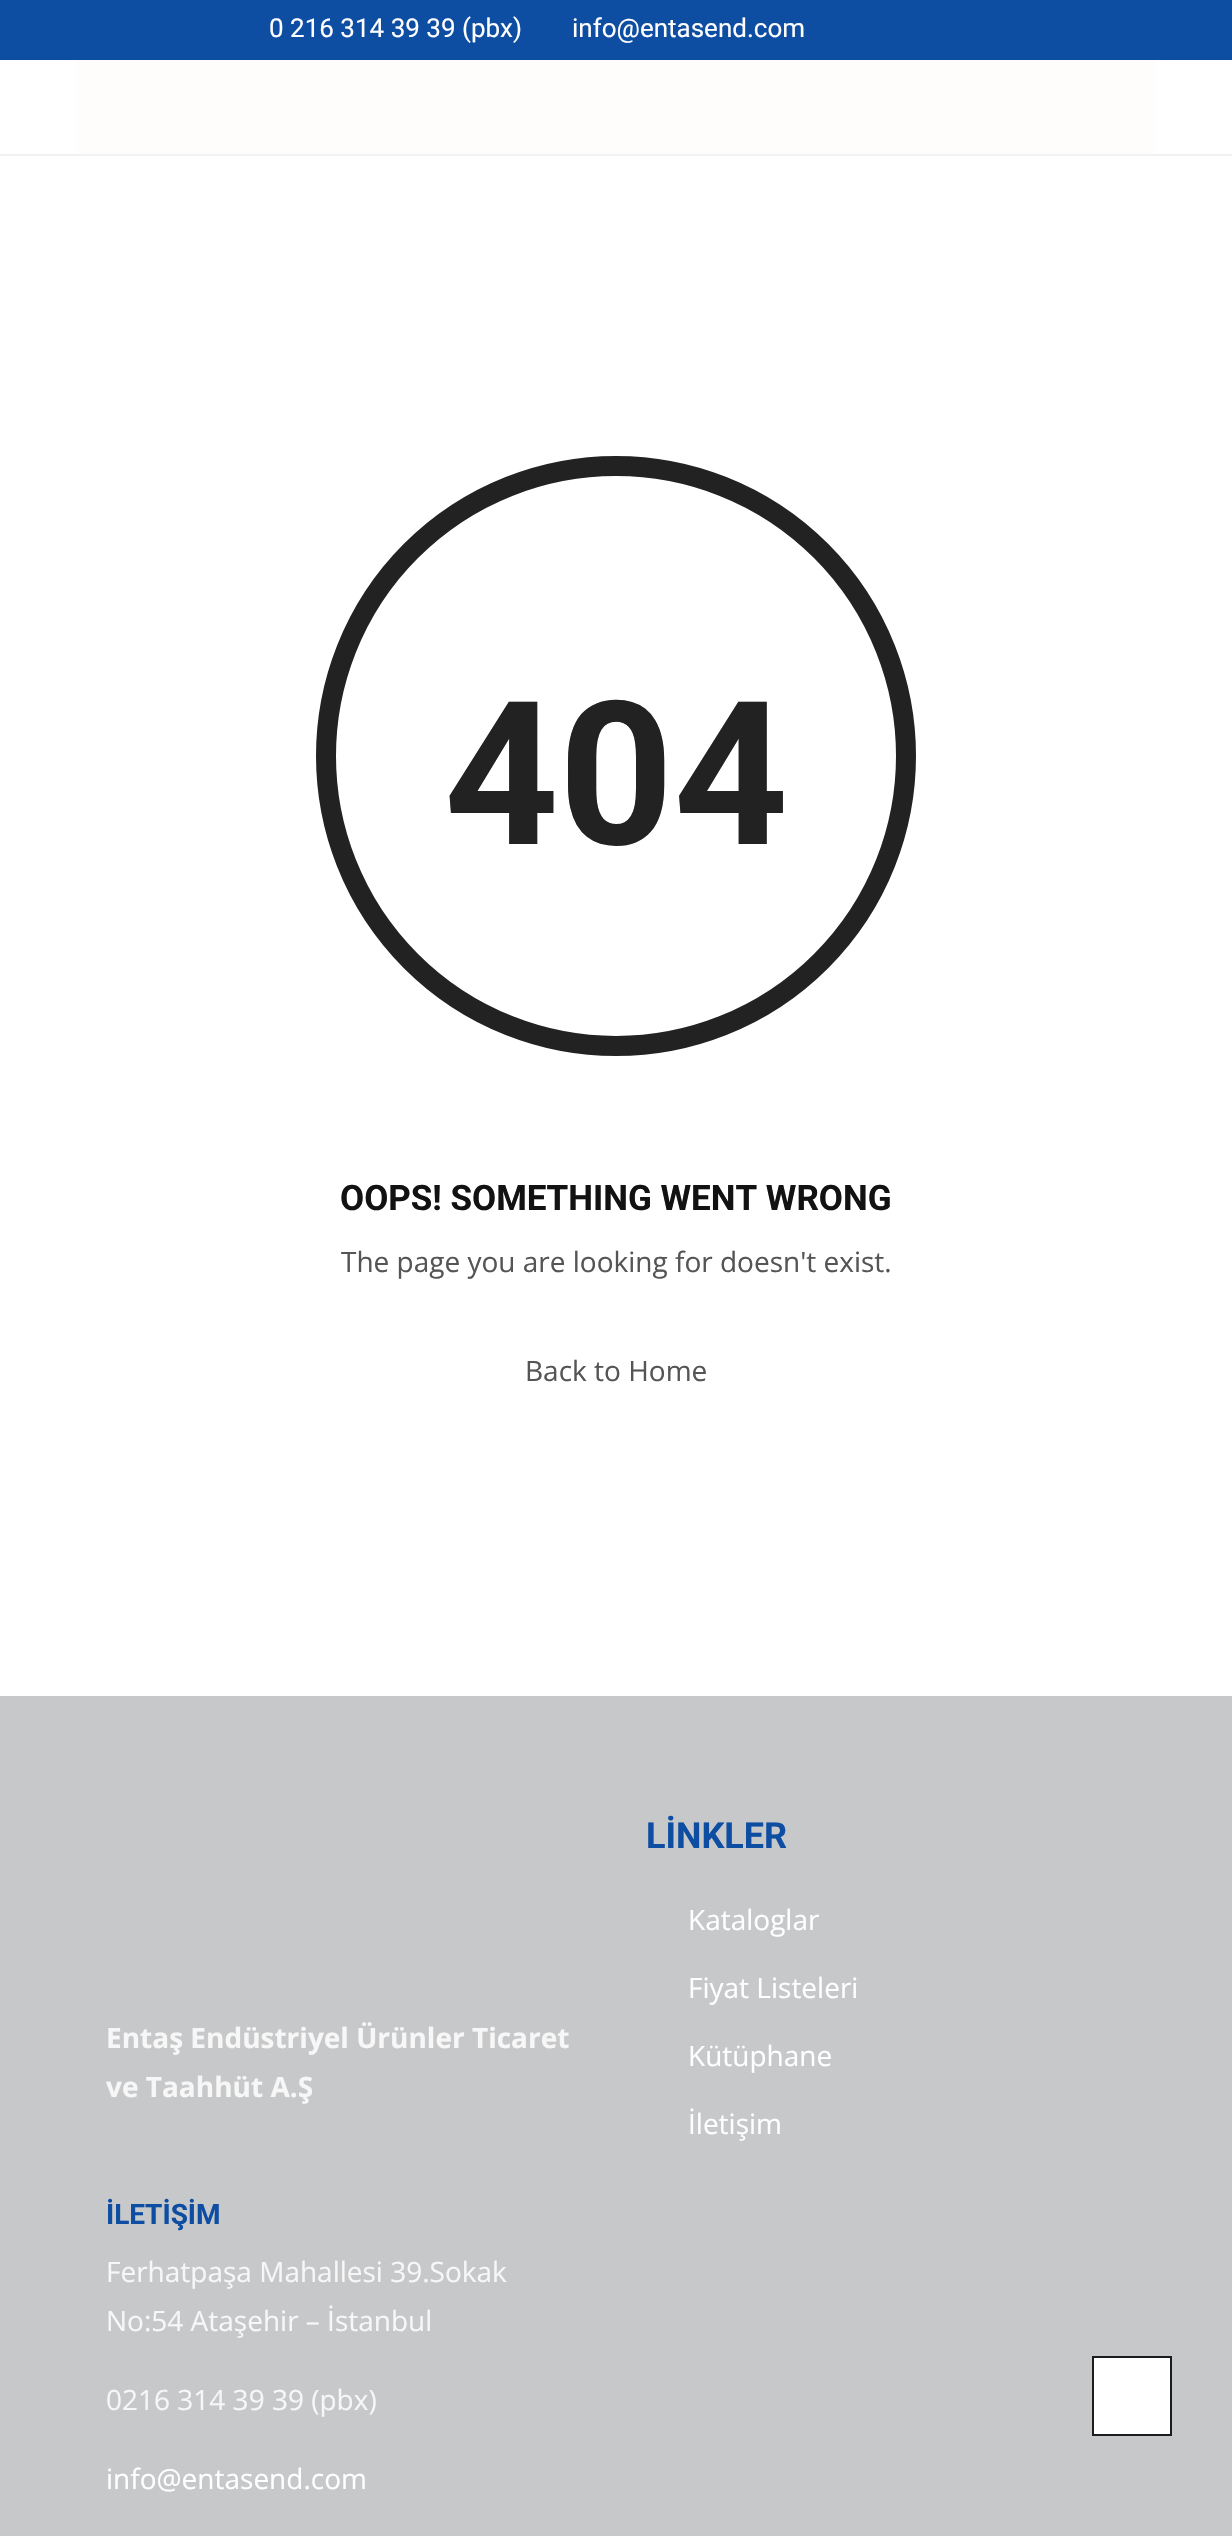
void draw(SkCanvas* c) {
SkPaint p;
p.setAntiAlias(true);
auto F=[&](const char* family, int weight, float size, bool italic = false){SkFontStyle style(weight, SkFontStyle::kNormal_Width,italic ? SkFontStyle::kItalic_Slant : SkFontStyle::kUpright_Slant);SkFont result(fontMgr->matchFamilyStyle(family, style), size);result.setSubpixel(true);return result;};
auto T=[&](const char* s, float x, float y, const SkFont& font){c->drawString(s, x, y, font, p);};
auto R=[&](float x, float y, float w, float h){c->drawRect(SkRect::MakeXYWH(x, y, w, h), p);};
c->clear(0xffffffff);
p.setColor(0xff0d4da2);
R(0,0,1232,60);
auto f1 = F("Roboto",400,26);
p.setColor(0xffffffff);
T("0 216 314 39 39 (pbx)",269,37,f1);
T("info@entasend.com",572,37,f1);
p.setColor(0xfff2f2f2);
R(0,154,1232,2);
p.setColor(0xfffffcfc);
R(76,60,1080,94);
p.setStroke(true);
p.setStrokeWidth(20);
p.setColor(0xff222222);
c->drawCircle(616,756,290,p);
auto f2 = F("Roboto",700,200);
p.setStroke(false);
T("404",444,844,f2);
auto f3 = F("Roboto",700,35);
p.setColor(0xff121212);
T("OOPS! SOMETHING WENT WRONG",340,1210,f3);
auto f4 = F("Open Sans",400,28);
p.setColor(0xff555555);
T("The page you are looking for doesn't exist.",341,1272,f4);
T("Back to Home",525,1381,f4);
p.setColor(0xffc7c8ca);
R(0,1696,1232,840);
auto f5 = F("Open Sans",700,28);
p.setColor(0xfff7f7f7);
T("Entaş Endüstriyel Ürünler Ticaret",106,2048,f5);
T("ve Taahhüt A.Ş",106,2097,f5);
auto f6 = F("Roboto",700,36);
p.setColor(0xff0d4da2);
T("LİNKLER",646,1848,f6);
p.setColor(0xffffffff);
T("Kataloglar",688,1930,f4);
T("Fiyat Listeleri",688,1998,f4);
T("Kütüphane",688,2066,f4);
T("İletişim",688,2134,f4);
auto f7 = F("Roboto",700,28);
p.setColor(0xff0d4da2);
T("İLETİŞİM",106,2224,f7);
p.setColor(0xfff7f7f7);
T("Ferhatpaşa Mahallesi 39.Sokak",106,2282,f4);
T("No:54 Ataşehir – İstanbul",106,2331,f4);
T("0216 314 39 39 (pbx)",106,2410,f4);
p.setColor(0xffffffff);
T("info@entasend.com",106,2489,f4);
c->drawRect(SkRect::MakeXYWH(1093,2357,78,78),p);
p.setStroke(true);
p.setStrokeWidth(2);
p.setColor(0xff1c1c1c);
c->drawRect(SkRect::MakeXYWH(1093,2357,78,78),p);
}
